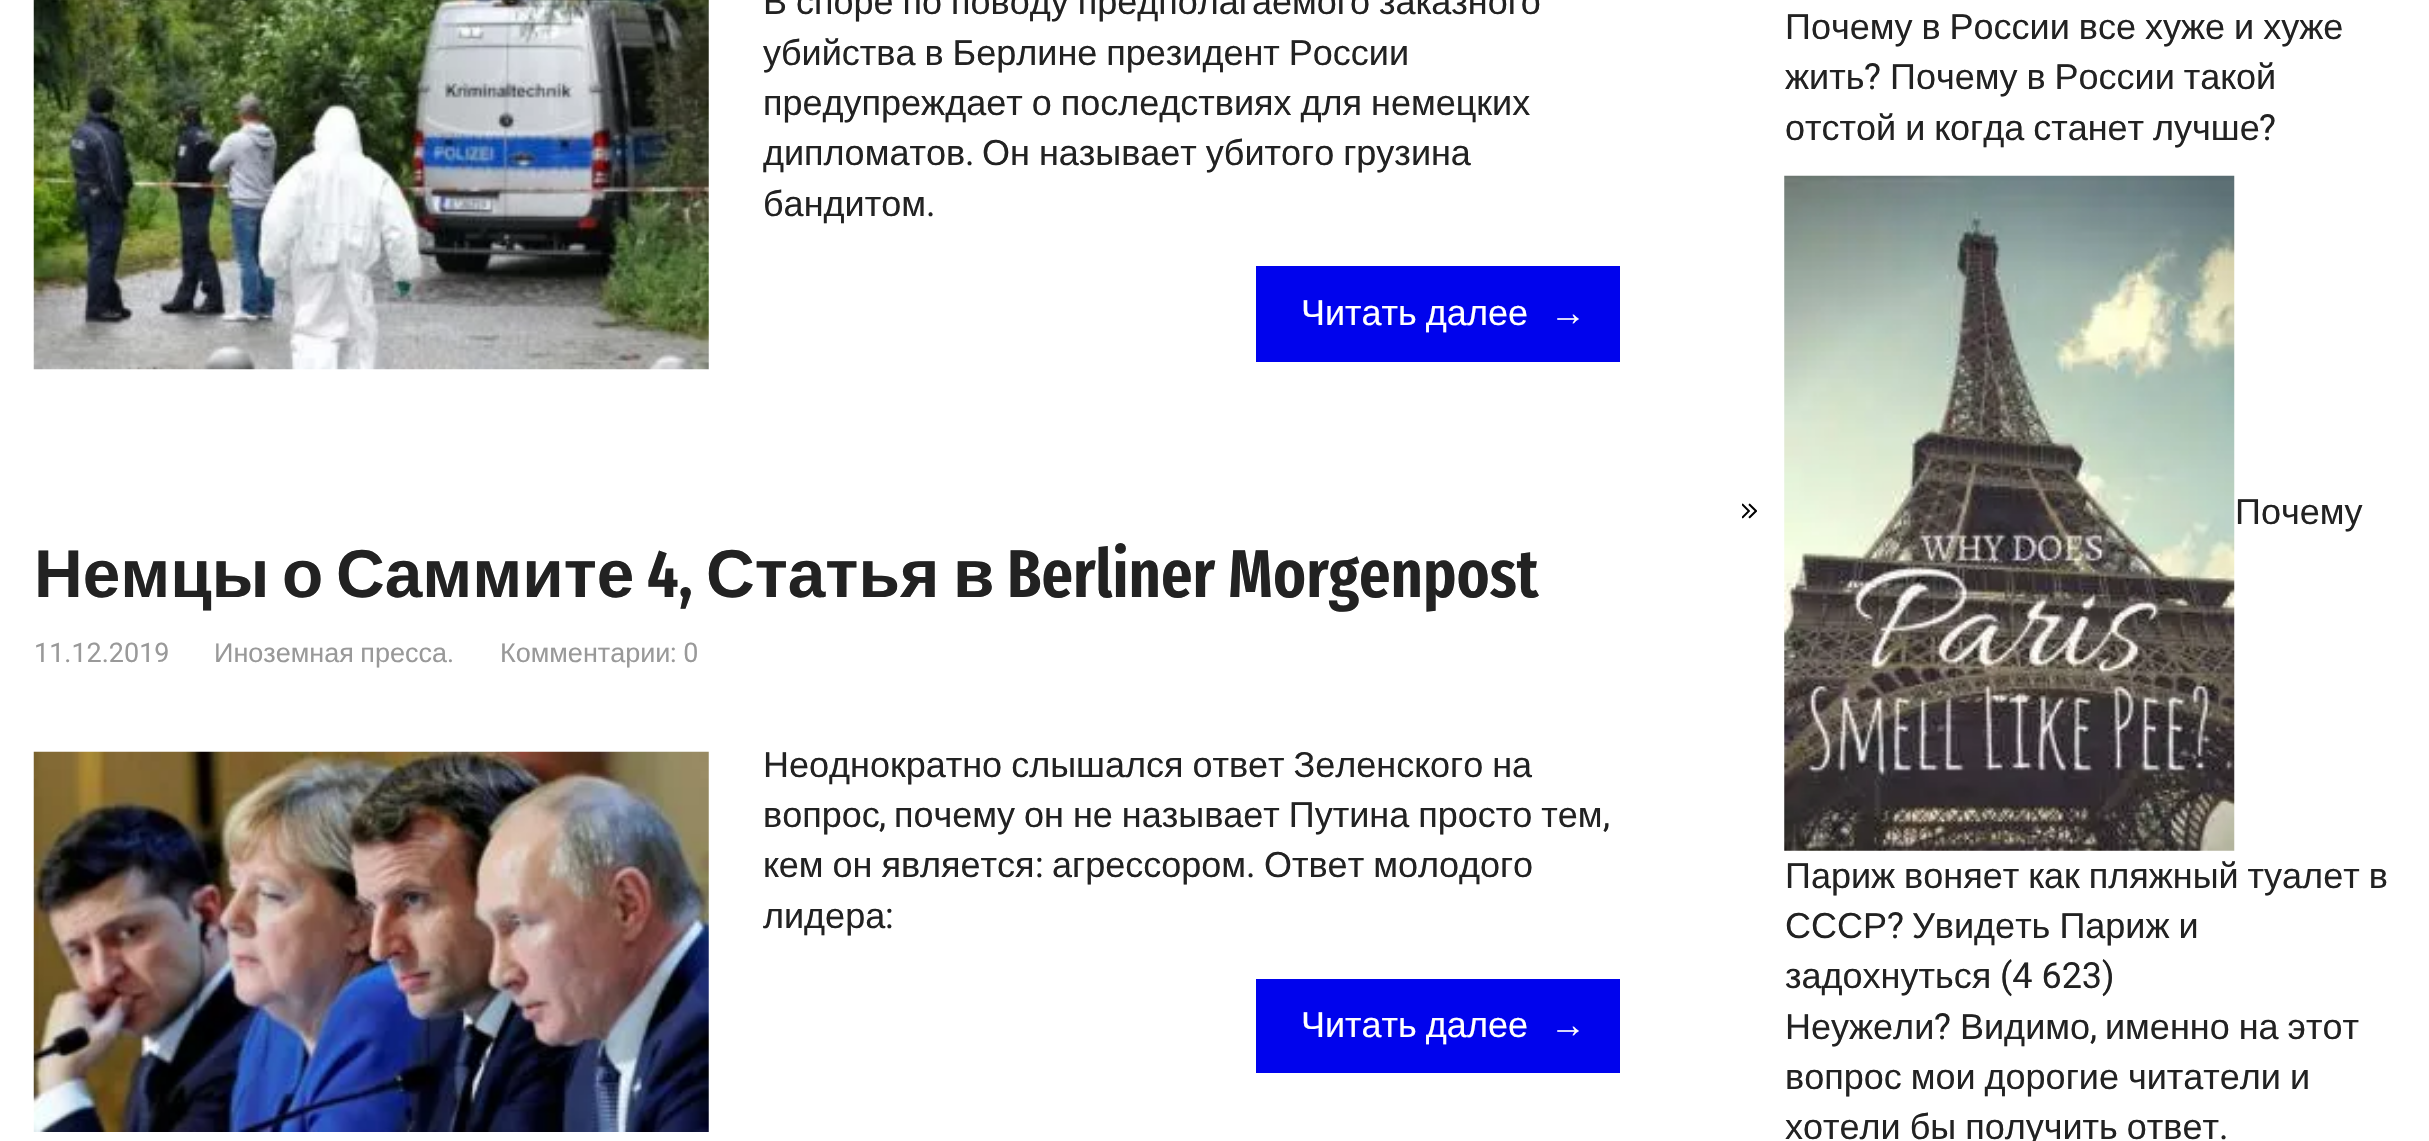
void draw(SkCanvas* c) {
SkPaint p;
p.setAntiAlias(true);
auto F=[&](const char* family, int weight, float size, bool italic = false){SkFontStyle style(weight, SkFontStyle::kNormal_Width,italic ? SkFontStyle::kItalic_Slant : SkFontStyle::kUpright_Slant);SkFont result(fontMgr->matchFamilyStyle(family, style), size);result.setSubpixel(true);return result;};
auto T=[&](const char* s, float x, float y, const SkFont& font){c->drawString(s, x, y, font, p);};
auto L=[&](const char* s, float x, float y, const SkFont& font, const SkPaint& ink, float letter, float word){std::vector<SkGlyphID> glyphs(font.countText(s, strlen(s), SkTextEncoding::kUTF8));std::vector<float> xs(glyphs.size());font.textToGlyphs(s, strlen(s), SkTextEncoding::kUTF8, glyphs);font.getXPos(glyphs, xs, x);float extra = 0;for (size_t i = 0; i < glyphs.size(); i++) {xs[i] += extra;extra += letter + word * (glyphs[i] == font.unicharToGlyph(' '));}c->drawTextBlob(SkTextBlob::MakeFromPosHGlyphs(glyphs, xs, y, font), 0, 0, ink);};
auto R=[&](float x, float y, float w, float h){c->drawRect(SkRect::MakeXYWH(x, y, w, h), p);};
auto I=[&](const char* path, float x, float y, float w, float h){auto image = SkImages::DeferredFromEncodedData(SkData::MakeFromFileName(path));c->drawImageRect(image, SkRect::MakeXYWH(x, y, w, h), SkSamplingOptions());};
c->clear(0xffffffff);
I("1.png",33,0,676,370);
auto f1 = F("Liberation Sans",400,36);
p.setColor(0xff222222);
L("В споре по поводу предполагаемого заказного",763,14,f1,p,0,-1);
L("убийства в Берлине президент России",763,65,f1,p,0,-1);
L("предупреждает о последствиях для немецких",763,115,f1,p,0,-1);
T("дипломатов",763,165,f1);
auto f2 = F("Roboto",400,36);
T(".",965,165,f2);
L("Он называет убитого грузина",982,165,f1,p,0,-1);
T("бандитом",763,216,f1);
T(".",926,216,f2);
p.setColor(0xff0003ed);
R(1256,266,364,96);
p.setColor(0xffffffff);
L("Читать далее",1301,325,f1,p,0,-1);
T("→",1550,325,f1);
auto f3 = F("Liberation Sans",700,67.5);
p.setColor(0xff222222);
T("Немцы",34,597,f3);
T("о",282,597,f3);
T("Саммите",336,597,f3);
auto f4 = F("Fira Sans Extra Condensed",600,67.5);
T("4,",647,597,f4);
T("Статья",706,597,f3);
T("в",953,597,f3);
T("Berliner Morgenpost",1007,597,f4);
auto f5 = F("Roboto",400,27);
p.setColor(0xff999999);
T("11.12.2019",34,662,f5);
auto f6 = F("Liberation Sans",400,27);
L("Иноземная пресса",214,662,f6,p,0,-1);
T(".",447,662,f5);
T("Комментарии",500,662,f6);
T(": 0",670,662,f5);
I("2.png",33,751,676,381);
p.setColor(0xff222222);
L("Неоднократно слышался ответ Зеленского на",763,777,f1,p,0,-1);
T("вопрос",763,827,f1);
T(",",879,827,f2);
L("почему он не называет Путина просто тем",894,827,f1,p,0,-1);
T(",",1603,827,f2);
L("кем он является",763,877,f1,p,0,-1);
T(":",1035,877,f2);
T("агрессором",1052,877,f1);
T(".",1246,877,f2);
L("Ответ молодого",1264,877,f1,p,0,-1);
T("лидера",763,928,f1);
T(":",885,928,f2);
p.setColor(0xff0003ed);
R(1256,979,364,94);
p.setColor(0xffffffff);
L("Читать далее",1301,1037,f1,p,0,-1);
T("→",1550,1037,f1);
p.setColor(0xff222222);
L("Почему в России все хуже и хуже",1785,39,f1,p,0,-1);
T("жить",1785,89,f1);
T("?",1864,89,f2);
L("Почему в России такой",1890,89,f1,p,0,-1);
L("отстой и когда станет лучше",1785,140,f1,p,0,-1);
T("?",2259,140,f2);
I("3.png",1742,503,15,16);
I("4.png",1784,175,451,676);
T("Почему",2235,524,f1);
L("Париж воняет как пляжный туалет в",1785,888,f1,p,0,-1);
T("СССР",1785,938,f1);
T("?",1887,938,f2);
L("Увидеть Париж и",1912,938,f1,p,0,-1);
T("задохнуться",1785,988,f1);
T("(4 623)",2000,988,f2);
T("Неужели",1785,1039,f1);
T("?",1934,1039,f2);
T("Видимо",1960,1039,f1);
T(",",2090,1039,f2);
L("именно на этот",2105,1039,f1,p,0,-1);
L("вопрос мои дорогие читатели и",1785,1089,f1,p,0,-1);
L("хотели бы получить ответ",1785,1139,f1,p,0,-1);
T(".",2219,1139,f2);
}
